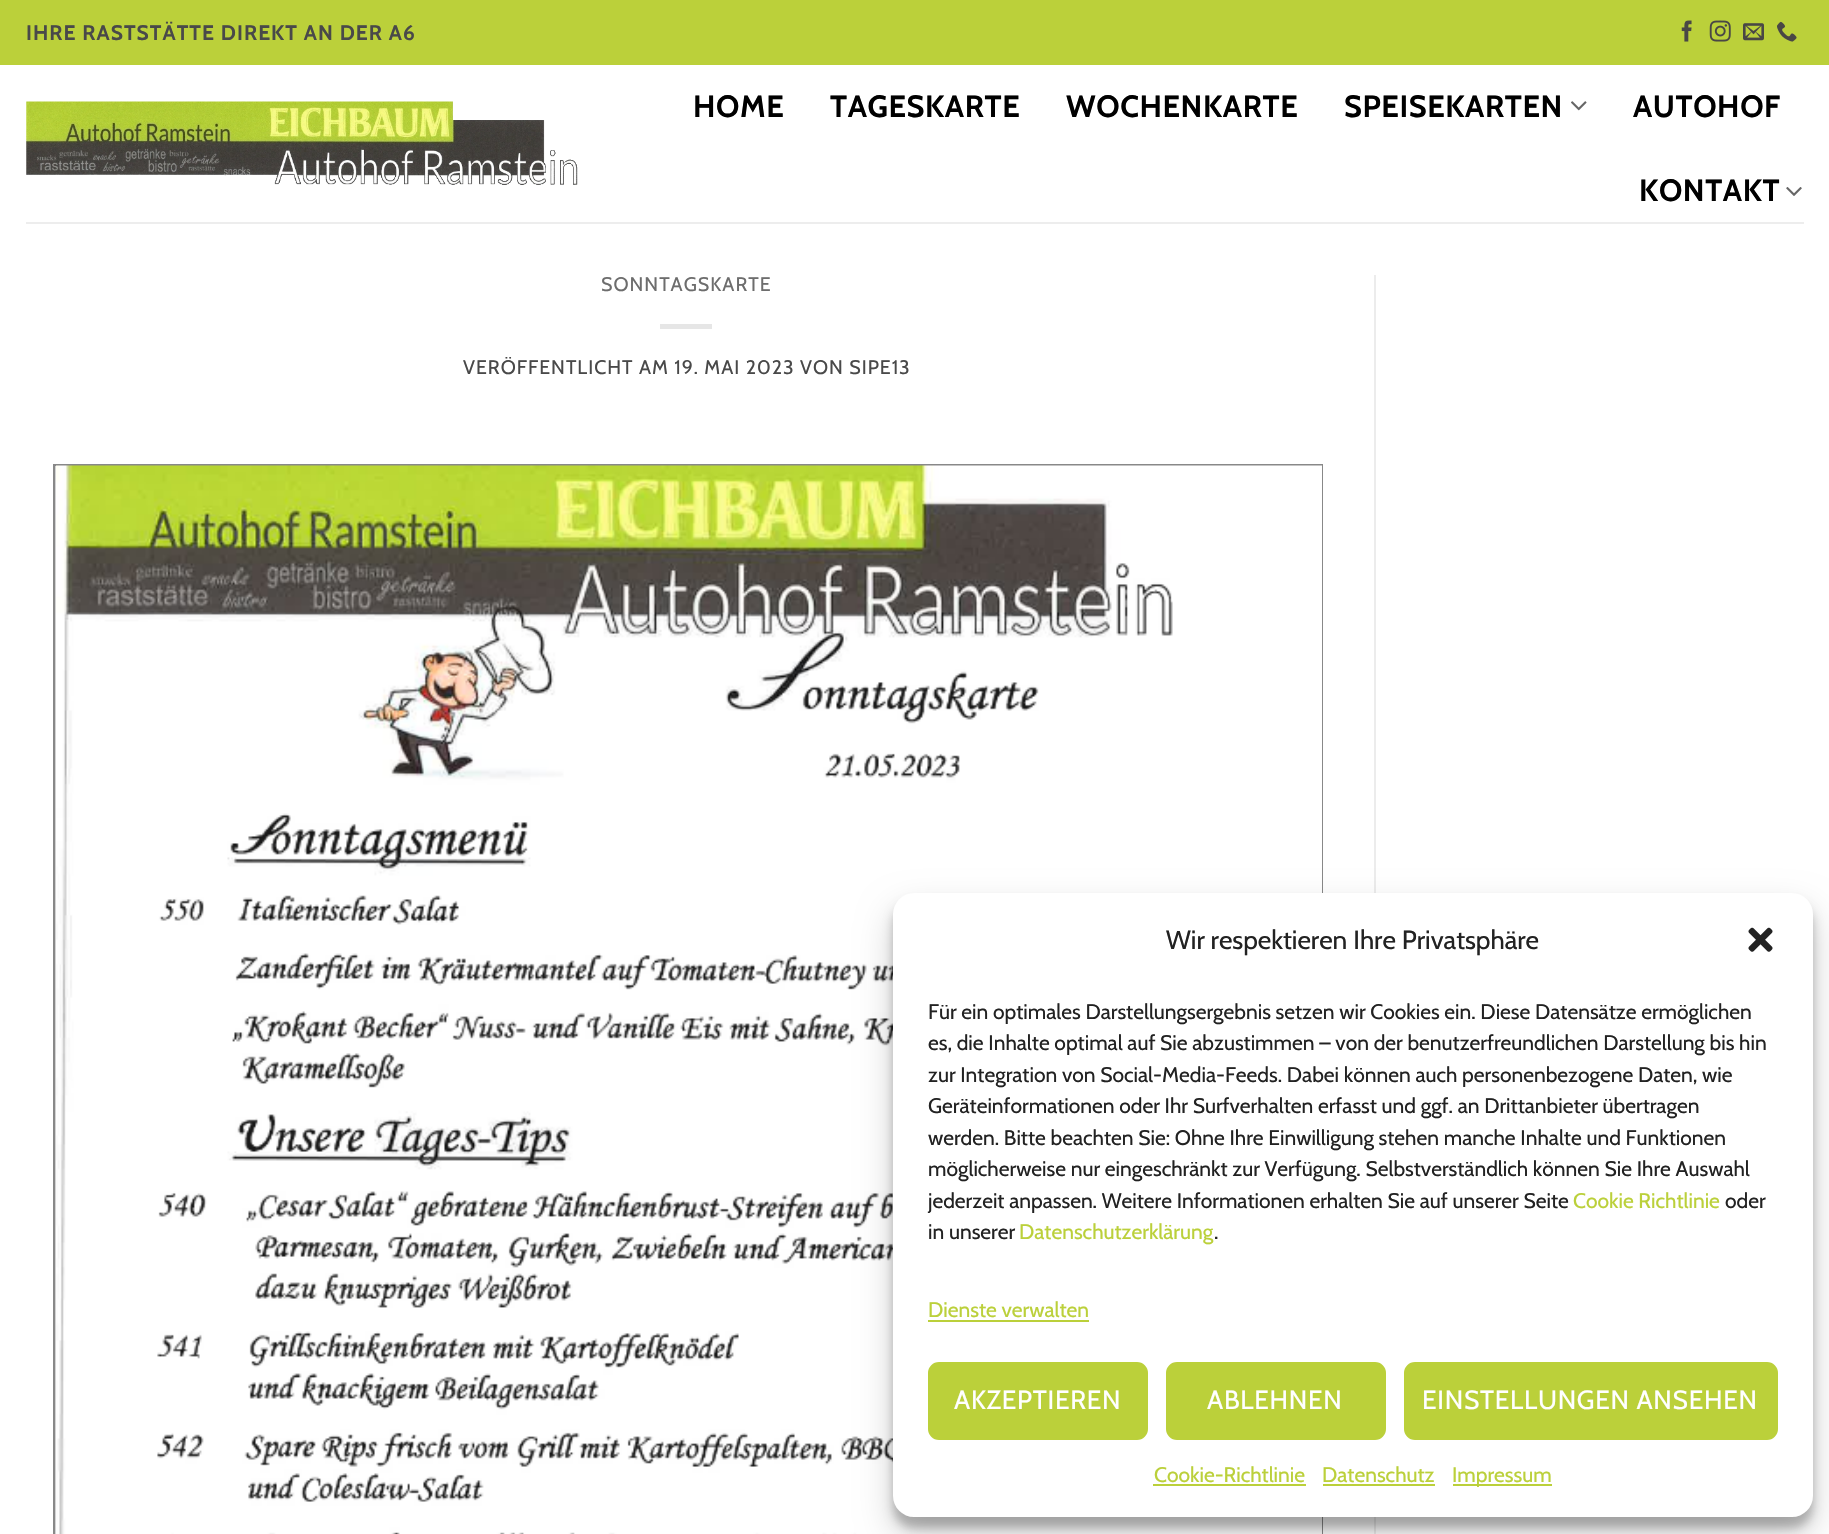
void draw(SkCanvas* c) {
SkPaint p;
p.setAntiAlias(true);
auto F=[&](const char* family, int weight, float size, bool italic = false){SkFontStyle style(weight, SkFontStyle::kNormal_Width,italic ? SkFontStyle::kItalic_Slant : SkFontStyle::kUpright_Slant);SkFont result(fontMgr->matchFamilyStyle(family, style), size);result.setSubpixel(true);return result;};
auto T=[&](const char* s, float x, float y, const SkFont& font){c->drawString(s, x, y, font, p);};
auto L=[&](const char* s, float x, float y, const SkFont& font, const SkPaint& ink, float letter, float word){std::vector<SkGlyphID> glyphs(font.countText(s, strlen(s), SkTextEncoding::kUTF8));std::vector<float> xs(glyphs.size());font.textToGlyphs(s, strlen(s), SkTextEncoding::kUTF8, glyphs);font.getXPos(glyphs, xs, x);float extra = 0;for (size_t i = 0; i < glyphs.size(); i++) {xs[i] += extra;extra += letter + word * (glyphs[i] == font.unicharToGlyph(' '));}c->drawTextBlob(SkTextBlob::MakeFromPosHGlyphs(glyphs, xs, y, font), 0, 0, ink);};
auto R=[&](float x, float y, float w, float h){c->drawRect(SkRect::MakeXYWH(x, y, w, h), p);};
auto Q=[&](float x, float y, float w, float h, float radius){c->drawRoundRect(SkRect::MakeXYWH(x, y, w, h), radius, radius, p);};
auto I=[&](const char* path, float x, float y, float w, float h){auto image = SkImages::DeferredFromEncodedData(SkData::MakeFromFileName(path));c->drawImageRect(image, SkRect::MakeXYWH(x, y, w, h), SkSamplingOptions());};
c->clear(0xffffffff);
p.setColor(0xffbbd03a);
R(0,0,1829,65);
auto f1 = F("Cabin",700,21);
p.setColor(0xff494949);
L("IHRE RASTSTÄTTE DIREKT AN DER A6",26,40,f1,p,1.05,0);
I("1.png",1681,20,11,22);
I("2.png",1709,20,22,22);
I("3.png",1743,23,21,18);
I("4.png",1777,21,20,21);
I("5.png",26,101,552,84);
auto f2 = F("Cabin",700,30.75);
p.setColor(0xff000000);
L("HOME",693,117,f2,p,.6,0);
L("TAGESKARTE",830,117,f2,p,.6,0);
L("WOCHENKARTE",1066,117,f2,p,.6,0);
L("SPEISEKARTEN",1344,117,f2,p,.6,0);
I("6.png",1571,101,16,10);
L("AUTOHOF",1633,117,f2,p,.6,0);
L("KONTAKT",1639,201,f2,p,.6,0);
I("7.png",1786,187,16,9);
p.setColor(0xffededed);
R(26,222,1778,2);
auto f3 = F("Cabin",400,19.6);
p.setColor(0xff6d6d6d);
L("SONNTAGSKARTE",601,291,f3,p,1,0);
p.setColor(0xffe6e6e6);
R(660,324,52,5);
p.setColor(0xff494949);
L("VERÖFFENTLICHT AM 19. MAI 2023 VON SIPE13",463,374,f3,p,1,0);
p.setColor(0xffd3d3d3);
R(55,466,1,1068);
p.setStroke(true);
p.setStrokeWidth(2);
p.setColor(0xff888888);
c->drawRect(SkRect::MakeXYWH(54,465,1268,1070),p);
I("8.png",56,465,1266,1069);
p.setStroke(false);
p.setColor(0xffececec);
R(1374,275,2,1259);
p.setColor(0x3b000000);
p.setMaskFilter(SkMaskFilter::MakeBlur(kNormal_SkBlurStyle, 5));
c->drawRoundRect(SkRect::MakeXYWH(893,903,920,625),21,21,p);
p.setMaskFilter(nullptr);
p.setColor(0x30000000);
p.setMaskFilter(SkMaskFilter::MakeBlur(kNormal_SkBlurStyle, 17.5));
c->drawRoundRect(SkRect::MakeXYWH(893,910,920,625),21,21,p);
p.setMaskFilter(nullptr);
p.setColor(0xffffffff);
Q(893,893,920,624,21);
auto f4 = F("Cabin",400,26.25);
p.setColor(0xff222222);
T("Wir respektieren Ihre Privatsphäre",1166,949,f4);
I("9.png",1748,927,25,25);
auto f5 = F("Cabin",400,21);
T("Für ein optimales Darstellungsergebnis setzen wir Cookies ein. Diese Datensätze ermöglichen",928,1019,f5);
T("es, die Inhalte optimal auf Sie abzustimmen – von der benutzerfreundlichen Darstellung bis hin",928,1050,f5);
T("zur Integration von Social-Media-Feeds. Dabei können auch personenbezogene Daten, wie",928,1082,f5);
T("Geräteinformationen oder Ihr Surfverhalten erfasst und ggf. an Drittanbieter übertragen",928,1113,f5);
T("werden. Bitte beachten Sie: Ohne Ihre Einwilligung stehen manche Inhalte und Funktionen",928,1145,f5);
T("möglicherweise nur eingeschränkt zur Verfügung. Selbstverständlich können Sie Ihre Auswahl",928,1176,f5);
T("jederzeit anpassen. Weitere Informationen erhalten Sie auf unserer Seite",928,1208,f5);
p.setColor(0xffbbd03a);
T("Cookie Richtlinie",1573,1208,f5);
p.setColor(0xff222222);
T("oder",1725,1208,f5);
T("in unserer",928,1239,f5);
p.setColor(0xffbbd03a);
T("Datenschutzerklärung",1019,1239,f5);
p.setColor(0xff222222);
T(".",1214,1239,f5);
p.setColor(0xffbbd03a);
T("Dienste verwalten",928,1317,f5);
R(928,1320,161,2);
c->drawRoundRect(SkRect::MakeXYWH(929,1363,218,76),10,10,p);
p.setStroke(true);
c->drawRoundRect(SkRect::MakeXYWH(929,1363,218,76),10,10,p);
p.setStroke(false);
p.setColor(0xffffffff);
L("AKZEPTIEREN",954,1409,f4,p,.75,0);
p.setColor(0xffbbd03a);
c->drawRoundRect(SkRect::MakeXYWH(1167,1363,218,76),10,10,p);
p.setStroke(true);
c->drawRoundRect(SkRect::MakeXYWH(1167,1363,218,76),10,10,p);
p.setStroke(false);
p.setColor(0xffffffff);
L("ABLEHNEN",1207,1409,f4,p,.75,0);
p.setColor(0xffbbd03a);
c->drawRoundRect(SkRect::MakeXYWH(1405,1363,372,76),10,10,p);
p.setStroke(true);
c->drawRoundRect(SkRect::MakeXYWH(1405,1363,372,76),10,10,p);
p.setStroke(false);
p.setColor(0xffffffff);
L("EINSTELLUNGEN ANSEHEN",1422,1409,f4,p,.75,0);
p.setColor(0xffbbd03a);
T("Cookie-Richtlinie",1154,1482,f5);
R(1153,1484,153,2);
T("Datenschutz",1322,1482,f5);
R(1323,1484,112,2);
R(1453,1484,99,2);
T("Impressum",1452,1482,f5);
}
